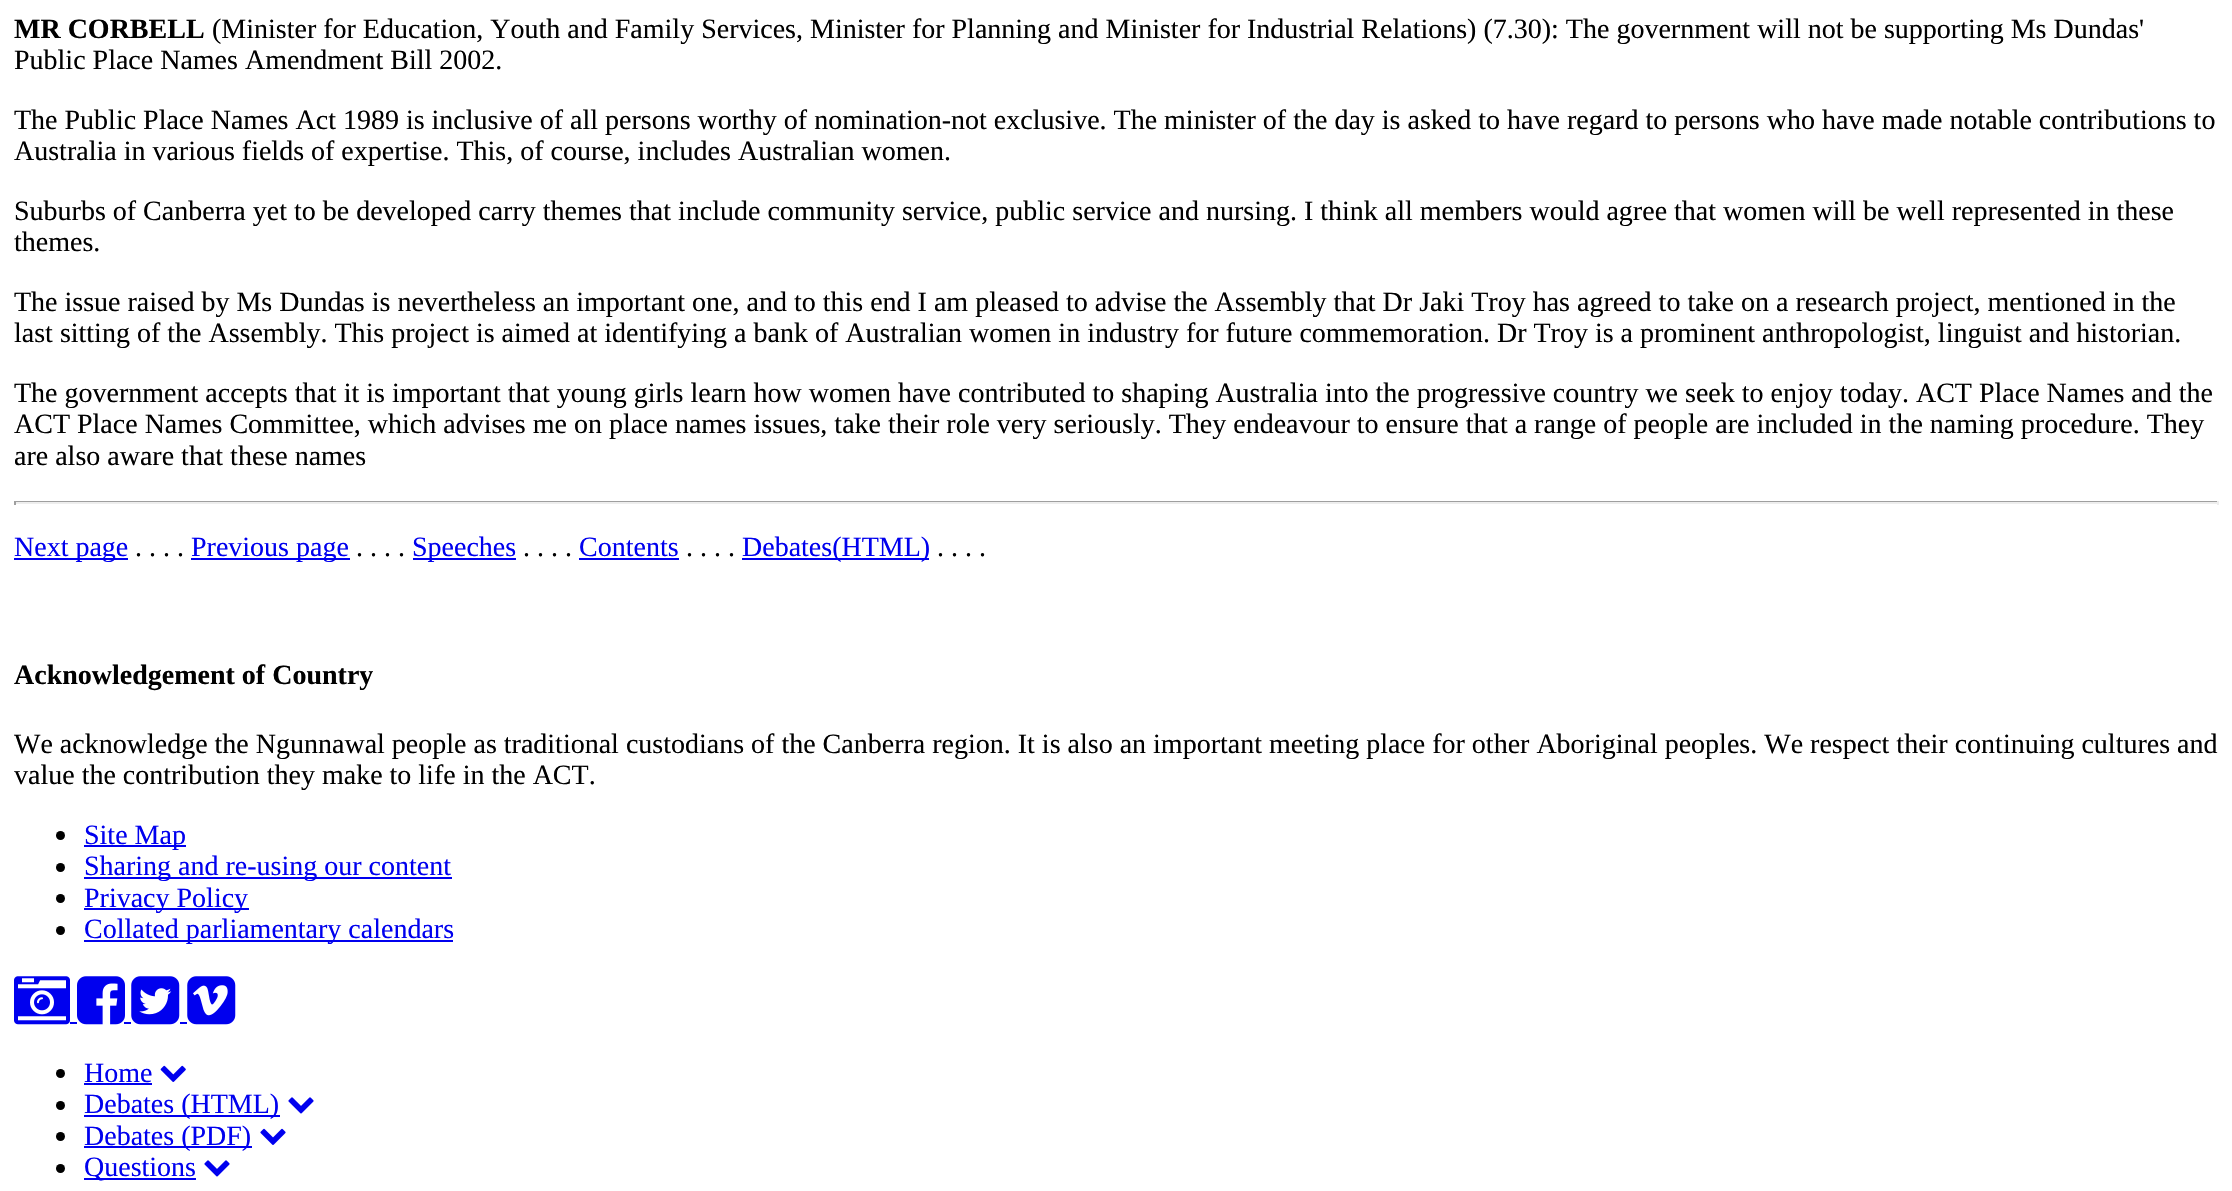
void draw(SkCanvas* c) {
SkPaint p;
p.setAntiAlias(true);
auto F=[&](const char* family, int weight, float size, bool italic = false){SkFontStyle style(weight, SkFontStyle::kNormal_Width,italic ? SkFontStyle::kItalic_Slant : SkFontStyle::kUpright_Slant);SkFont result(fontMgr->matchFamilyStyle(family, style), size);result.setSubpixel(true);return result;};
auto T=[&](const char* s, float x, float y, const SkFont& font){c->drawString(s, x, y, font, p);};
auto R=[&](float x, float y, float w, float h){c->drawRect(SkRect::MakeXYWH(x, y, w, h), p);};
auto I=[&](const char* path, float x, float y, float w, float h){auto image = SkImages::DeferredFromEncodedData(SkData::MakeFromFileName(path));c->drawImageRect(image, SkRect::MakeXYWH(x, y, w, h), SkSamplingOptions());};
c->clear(0xffffffff);
auto f1 = F("Liberation Serif",700,28);
p.setColor(0xff000000);
T("MR CORBELL",14,38,f1);
auto f2 = F("Liberation Serif",400,28);
T("(Minister for Education, Youth and Family Services, Minister for Planning and Minister for Industrial Relations) (7.30): The government will not be supporting Ms Dundas'",212,38,f2);
T("Public Place Names Amendment Bill 2002.",14,69,f2);
T("The Public Place Names Act 1989 is inclusive of all persons worthy of nomination-not exclusive. The minister of the day is asked to have regard to persons who have made notable contributions to",14,129,f2);
T("Australia in various fields of expertise. This, of course, includes Australian women.",14,160,f2);
T("Suburbs of Canberra yet to be developed carry themes that include community service, public service and nursing. I think all members would agree that women will be well represented in these",14,220,f2);
T("themes.",14,251,f2);
T("The issue raised by Ms Dundas is nevertheless an important one, and to this end I am pleased to advise the Assembly that Dr Jaki Troy has agreed to take on a research project, mentioned in the",14,311,f2);
T("last sitting of the Assembly. This project is aimed at identifying a bank of Australian women in industry for future commemoration. Dr Troy is a prominent anthropologist, linguist and historian.",14,342,f2);
T("The government accepts that it is important that young girls learn how women have contributed to shaping Australia into the progressive country we seek to enjoy today. ACT Place Names and the",14,402,f2);
T("ACT Place Names Committee, which advises me on place names issues, take their role very seriously. They endeavour to ensure that a range of people are included in the naming procedure. They",14,433,f2);
T("are also aware that these names",14,465,f2);
p.setColor(0xff9f9f9f);
R(14,501,2205,1);
p.setColor(0xffeeeeee);
R(2217,501,2,4);
R(14,502,2205,2);
p.setColor(0xff9f9f9f);
R(14,501,2,4);
p.setColor(0xff0000ee);
R(14,558,114,2);
T("Next page",14,556,f2);
p.setColor(0xff000000);
T(". . . .",135,556,f2);
p.setColor(0xff0000ee);
R(191,558,159,2);
T("Previous page",191,556,f2);
p.setColor(0xff000000);
T(". . . .",356,556,f2);
p.setColor(0xff0000ee);
R(413,558,103,2);
T("Speeches",412,556,f2);
p.setColor(0xff000000);
T(". . . .",523,556,f2);
p.setColor(0xff0000ee);
T("Contents",579,556,f2);
R(579,558,100,2);
p.setColor(0xff000000);
T(". . . .",686,556,f2);
p.setColor(0xff0000ee);
R(742,558,187,2);
T("Debates(HTML)",742,556,f2);
p.setColor(0xff000000);
T(". . . .",937,556,f2);
T("Acknowledgement of Country",14,684,f1);
T("We acknowledge the Ngunnawal people as traditional custodians of the Canberra region. It is also an important meeting place for other Aboriginal peoples. We respect their continuing cultures and",14,753,f2);
T("value the contribution they make to life in the ACT.",14,784,f2);
c->drawCircle(60.5,835.5,4.5,p);
p.setColor(0xff0000ee);
R(84,845,102,2);
T("Site Map",84,844,f2);
p.setColor(0xff000000);
c->drawCircle(60.5,867.5,4.5,p);
p.setColor(0xff0000ee);
R(84,877,368,2);
T("Sharing and re-using our content",84,875,f2);
p.setColor(0xff000000);
c->drawCircle(60.5,898.5,4.5,p);
p.setColor(0xff0000ee);
R(84,908,165,2);
T("Privacy Policy",84,907,f2);
p.setColor(0xff000000);
c->drawCircle(60.5,930.5,4.5,p);
p.setColor(0xff0000ee);
R(84,940,369,2);
T("Collated parliamentary calendars",84,938,f2);
I("1.png",14,976,56,49);
R(70,1022,7,2);
I("2.png",77,976,48,49);
R(124,1022,7,2);
I("3.png",131,976,49,49);
R(180,1022,7,2);
I("4.png",187,976,49,49);
p.setColor(0xff000000);
c->drawCircle(60.5,1073.5,4.5,p);
p.setColor(0xff0000ee);
T("Home",84,1082,f2);
R(84,1083,68,2);
I("5.png",160,1065,26,17);
p.setColor(0xff000000);
c->drawCircle(60.5,1105.5,4.5,p);
p.setColor(0xff0000ee);
R(84,1115,196,2);
T("Debates (HTML)",84,1113,f2);
I("6.png",288,1097,26,17);
p.setColor(0xff000000);
c->drawCircle(60.5,1136.5,4.5,p);
p.setColor(0xff0000ee);
R(84,1146,168,2);
T("Debates (PDF)",84,1145,f2);
I("7.png",260,1128,26,17);
p.setColor(0xff000000);
c->drawCircle(60.5,1168.5,4.5,p);
p.setColor(0xff0000ee);
R(84,1178,112,2);
T("Questions",84,1176,f2);
I("6.png",204,1160,26,17);
}
